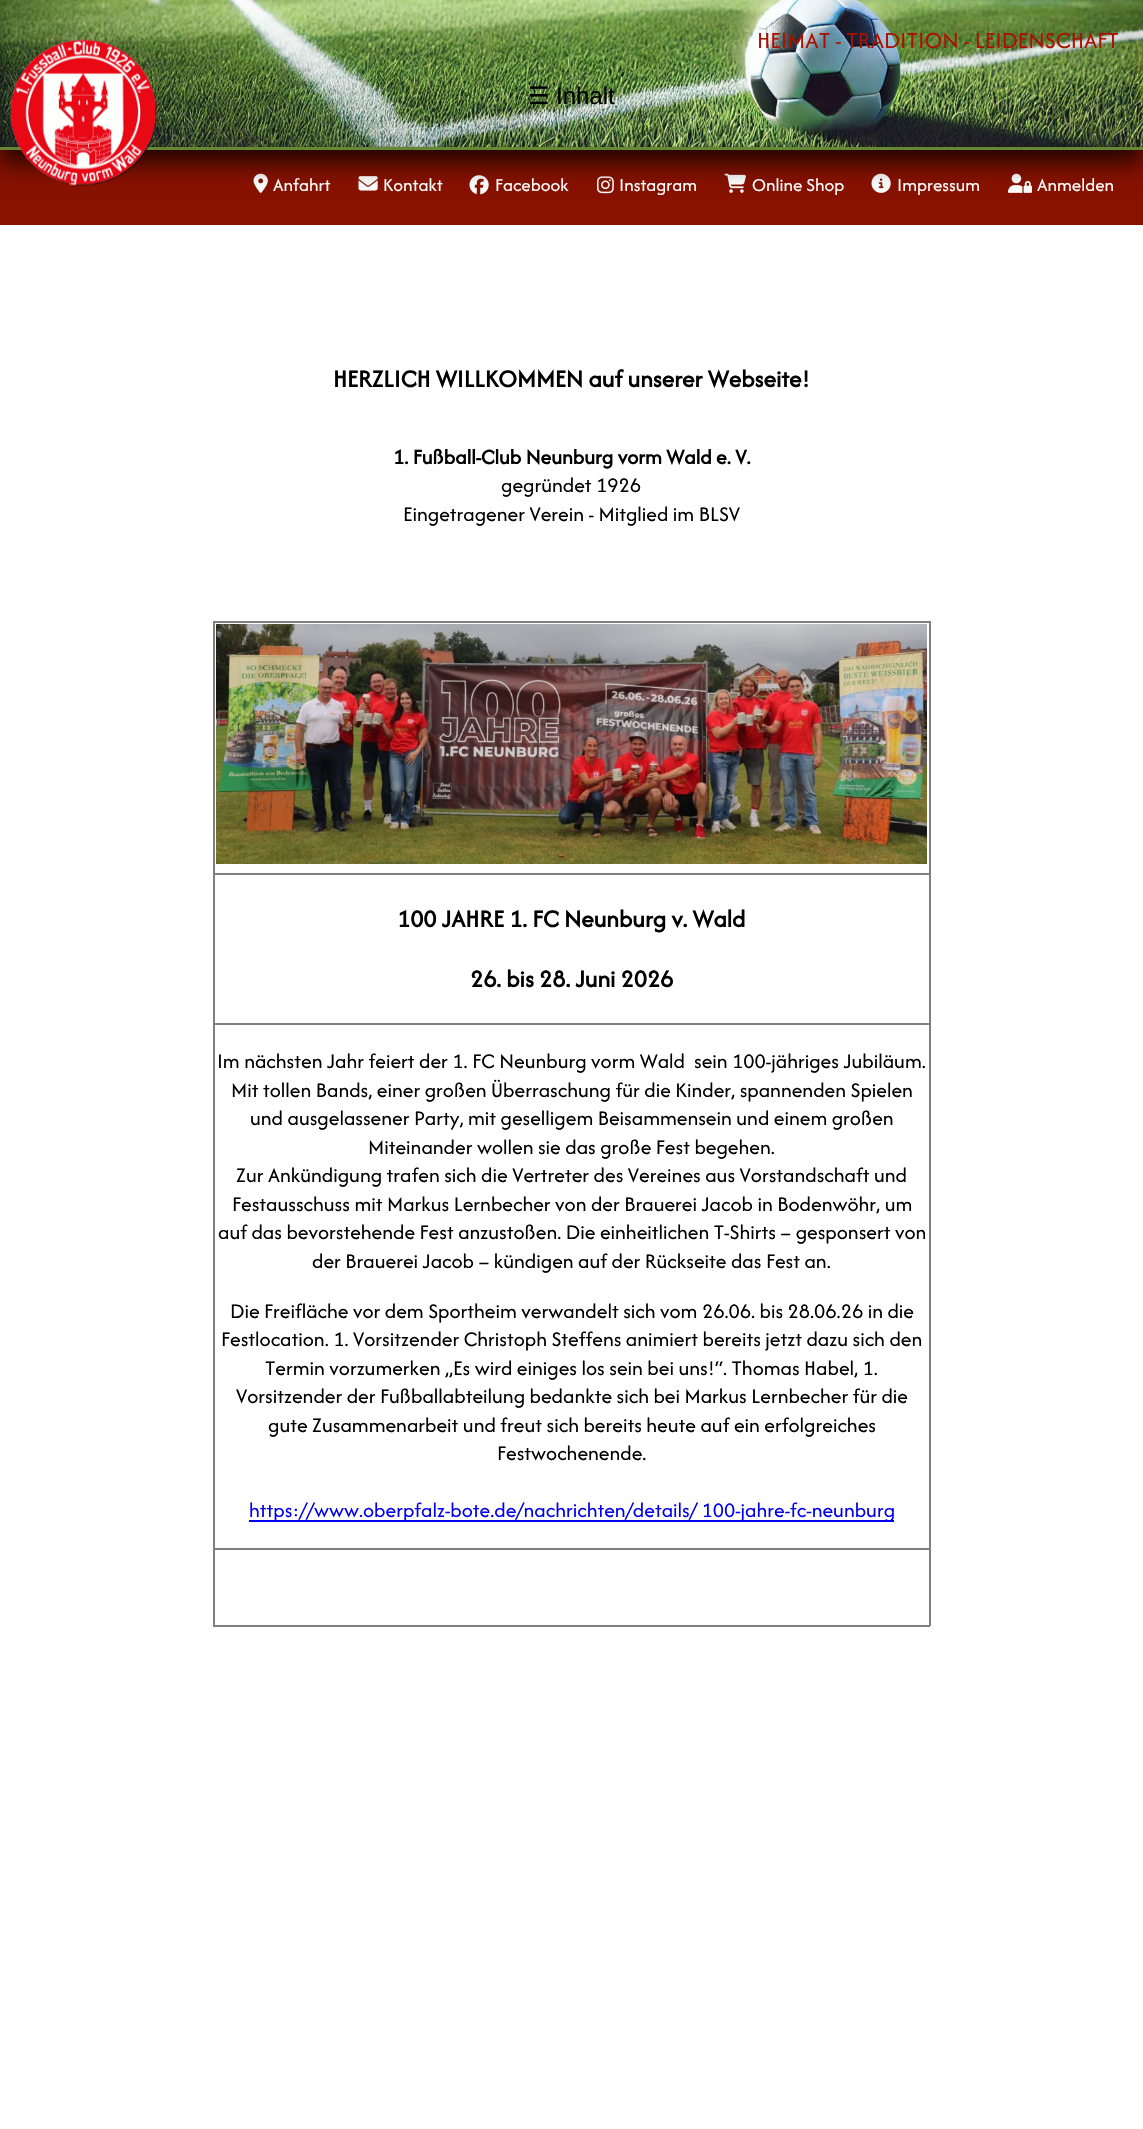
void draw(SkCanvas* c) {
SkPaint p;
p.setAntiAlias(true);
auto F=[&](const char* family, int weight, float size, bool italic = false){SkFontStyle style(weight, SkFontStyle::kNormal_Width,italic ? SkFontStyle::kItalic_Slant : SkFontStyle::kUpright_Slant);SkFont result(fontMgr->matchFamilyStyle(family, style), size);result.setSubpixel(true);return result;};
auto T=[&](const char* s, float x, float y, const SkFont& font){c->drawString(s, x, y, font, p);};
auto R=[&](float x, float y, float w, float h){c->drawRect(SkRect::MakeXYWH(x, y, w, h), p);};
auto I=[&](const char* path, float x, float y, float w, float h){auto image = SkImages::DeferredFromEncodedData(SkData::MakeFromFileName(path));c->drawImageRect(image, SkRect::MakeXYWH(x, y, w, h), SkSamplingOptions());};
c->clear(0xffffffff);
p.setColor(0xff881100);
R(0,146,1143,79);
I("3.png",253,173,15,20);
I("4.png",358,176,20,15);
I("5.png",469,175,20,20);
I("6.png",597,176,17,18);
I("7.png",724,173,22,20);
I("8.png",871,173,20,20);
I("9.png",1008,173,24,20);
p.setColor(0xcc000000);
p.setMaskFilter(SkMaskFilter::MakeBlur(kNormal_SkBlurStyle, 12));
c->drawRect(SkRect::MakeXYWH(0,12,1143,150),p);
p.setMaskFilter(nullptr);
I("1.png",0,0,1143,147);
p.setColor(0xff668833);
R(0,147,1143,3);
I("2.png",10,39,147,148);
auto f1 = F("DejaVu Sans",400,24);
p.setColor(0xff000000);
T("☰",528,104,f1);
auto f2 = F("Liberation Sans",400,24);
T("Inhalt",556,104,f2);
auto f3 = F("Afacad",400,24);
p.setColor(0xffaa1100);
T("HEIMAT - TRADITION - LEIDENSCHAFT",757,48,f3);
auto f4 = F("Afacad",400,19);
p.setColor(0xffffffff);
T("Anfahrt",273,191,f4);
T("Kontakt",383,191,f4);
T("Facebook",495,191,f4);
T("Instagram",619,191,f4);
T("Online Shop",752,191,f4);
T("Impressum",897,191,f4);
T("Anmelden",1037,191,f4);
auto f5 = F("Afacad",700,25.25);
p.setColor(0xff000000);
T("HERZLICH WILLKOMMEN auf unserer Webseite!",333,387,f5);
auto f6 = F("Afacad",700,21.6);
T("1. Fußball-Club Neunburg vorm Wald e. V.",393,464,f6);
auto f7 = F("Afacad",400,21.6);
T("gegründet 1926",501,492,f7);
T("Eingetragener Verein - Mitglied im BLSV",403,521,f7);
p.setColor(0xff808080);
R(213,621,717,2);
R(929,621,2,1005);
R(213,1625,717,2);
R(213,621,2,1005);
I("10.png",216,624,711,240);
R(213,873,717,2);
p.setColor(0xff000000);
T("100 JAHRE 1. FC Neunburg v. Wald",397,927,f5);
T("26. bis 28. Juni 2026",470,987,f5);
p.setColor(0xff808080);
R(213,1023,717,2);
p.setColor(0xff000000);
T("Im nächsten Jahr feiert der 1. FC Neunburg vorm Wald  sein 100-jähriges Jubiläum.",217,1068,f7);
T("Mit tollen Bands, einer großen Überraschung für die Kinder, spannenden Spielen",231,1097,f7);
T("und ausgelassener Party, mit geselligem Beisammensein und einem großen",250,1125,f7);
T("Miteinander wollen sie das große Fest begehen.",368,1154,f7);
T("Zur Ankündigung trafen sich die Vertreter des Vereines aus Vorstandschaft und",236,1182,f7);
T("Festausschuss mit Markus Lernbecher von der Brauerei Jacob in Bodenwöhr, um",232,1211,f7);
T("auf das bevorstehende Fest anzustoßen. Die einheitlichen T-Shirts – gesponsert von",218,1239,f7);
T("der Brauerei Jacob – kündigen auf der Rückseite das Fest an.",312,1268,f7);
T("Die Freifläche vor dem Sportheim verwandelt sich vom 26.06. bis 28.06.26 in die",230,1318,f7);
T("Festlocation. 1. Vorsitzender Christoph Steffens animiert bereits jetzt dazu sich den",221,1346,f7);
T("Termin vorzumerken „Es wird einiges los sein bei uns!“. Thomas Habel, 1.",265,1375,f7);
T("Vorsitzender der Fußballabteilung bedankte sich bei Markus Lernbecher für die",236,1403,f7);
T("gute Zusammenarbeit und freut sich bereits heute auf ein erfolgreiches",268,1432,f7);
T("Festwochenende.",497,1460,f7);
p.setColor(0xff0000ee);
R(249,1520,645,2);
T("https://www.oberpfalz-bote.de/nachrichten/details/ 100-jahre-fc-neunburg",249,1517,f7);
p.setColor(0xff808080);
R(213,1548,717,2);
}
